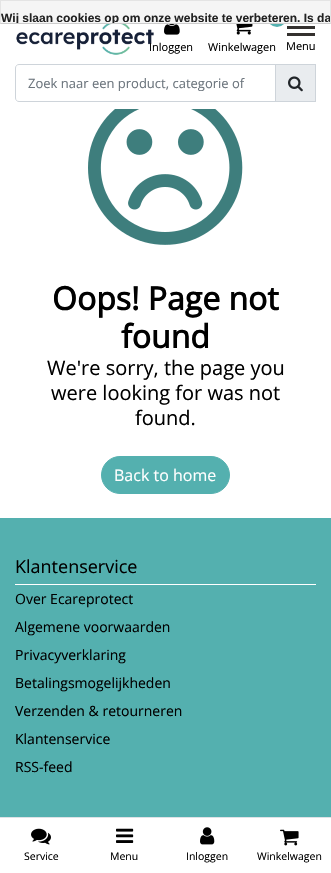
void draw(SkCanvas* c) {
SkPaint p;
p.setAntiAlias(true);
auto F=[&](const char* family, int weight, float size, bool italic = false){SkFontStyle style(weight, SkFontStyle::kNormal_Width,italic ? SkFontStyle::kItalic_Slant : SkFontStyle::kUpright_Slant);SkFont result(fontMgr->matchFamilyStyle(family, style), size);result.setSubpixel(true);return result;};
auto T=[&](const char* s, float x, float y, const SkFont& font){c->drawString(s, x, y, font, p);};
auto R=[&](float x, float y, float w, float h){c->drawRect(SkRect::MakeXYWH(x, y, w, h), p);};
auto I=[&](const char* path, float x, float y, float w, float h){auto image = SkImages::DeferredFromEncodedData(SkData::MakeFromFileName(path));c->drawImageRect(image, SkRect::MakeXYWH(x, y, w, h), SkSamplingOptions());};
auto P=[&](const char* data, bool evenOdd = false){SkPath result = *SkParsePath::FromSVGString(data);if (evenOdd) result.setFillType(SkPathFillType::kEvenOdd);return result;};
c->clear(0xffffffff);
p.setColor(0xff54b0af);
c->drawCircle(277,17,10,p);
p.setColor(0xfff5f5f5);
R(0,0,331,24);
p.setColor(0xffe4e4e4);
c->drawPath(P("M0 0h331l-1 1h-329z"),p);
p.setColor(0x12000000);
c->drawPath(P("M331 0v24l-1-1v-22z"),p);
p.setColor(0xffcccccc);
c->drawPath(P("M331 24h-331l1-1h329z"),p);
p.setColor(0x12000000);
c->drawPath(P("M0 24v-24l1 1v22z"),p);
c->save();
c->clipRect(SkRect::MakeXYWH(1,1,329,22));
auto f1 = F("Liberation Sans",700,12);
p.setColor(0xff222222);
T("Wij slaan cookies op om onze website te verbeteren. Is da",1,22,f1);
c->restore();
I("1.png",16,24,138,31);
I("2.png",164,24,16,11);
auto f2 = F("Open Sans",400,11);
p.setColor(0xff000000);
T("Inloggen",149,51,f2);
I("3.png",236,24,17,11);
T("Winkelwagen",208,51,f2);
p.setColor(0xff34312f);
R(287,26,28,3);
R(287,33,28,3);
p.setColor(0xff000000);
T("Menu",286,50,f2);
p.setColor(0xffe9ecef);
c->drawRect(SkRect::MakeXYWH(275.5,64.5,40,37),p);
p.setStroke(true);
p.setStrokeWidth(1);
p.setColor(0xffced4da);
c->drawRect(SkRect::MakeXYWH(275.5,64.5,40,37),p);
c->drawPath(P("M19 64.5h256.5v37h-256.5c-2 0-3.5-1.5-3.5-3.5v-30c0-2 1.5-3.5 3.5-3.5z"),p);
auto f3 = F("Open Sans",400,13);
p.setStroke(false);
p.setColor(0xff6c757d);
T("Zoek naar een product, categorie of",28,88,f3);
I("4.png",288,76,15,16);
I("5.png",88,109,155,136);
auto f4 = F("Open Sans",700,32);
p.setColor(0xff000000);
T("Oops! Page not",52,310,f4);
T("found",121,348,f4);
auto f5 = F("Open Sans",400,20);
T("We're sorry, the page you",47,375,f5);
T("were looking for was not",51,400,f5);
T("found.",135,425,f5);
p.setColor(0xff54b0af);
c->drawRoundRect(SkRect::MakeXYWH(101.5,456.5,128,37),18.5,18.5,p);
p.setStroke(true);
c->drawRoundRect(SkRect::MakeXYWH(101.5,456.5,128,37),18.5,18.5,p);
auto f6 = F("Open Sans",400,16);
p.setStroke(false);
p.setColor(0xffffffff);
T("Back to home",114,481,f6);
p.setColor(0xff54b0af);
R(0,518,331,299);
p.setColor(0xffffffff);
R(15,584,301,1);
auto f7 = F("Open Sans",400,18);
p.setColor(0xff000000);
T("Klantenservice",15,573,f7);
auto f8 = F("Open Sans",400,14);
T("Over Ecareprotect",15,604,f8);
T("Algemene voorwaarden",15,632,f8);
T("Privacyverklaring",15,660,f8);
T("Betalingsmogelijkheden",15,688,f8);
T("Verzenden & retourneren",15,716,f8);
T("Klantenservice",15,744,f8);
T("RSS-feed",15,772,f8);
p.setColor(0xffdee2e6);
R(0,817,331,1);
I("6.png",31,828,20,17);
auto f9 = F("Open Sans",400,10.5);
p.setColor(0xff000000);
T("Service",24,860,f9);
I("7.png",116,828,18,15);
T("Menu",110,860,f9);
I("8.png",200,827,15,18);
T("Inloggen",186,860,f9);
I("9.png",280,829,19,17);
T("Winkelwagen",257,860,f9);
}
